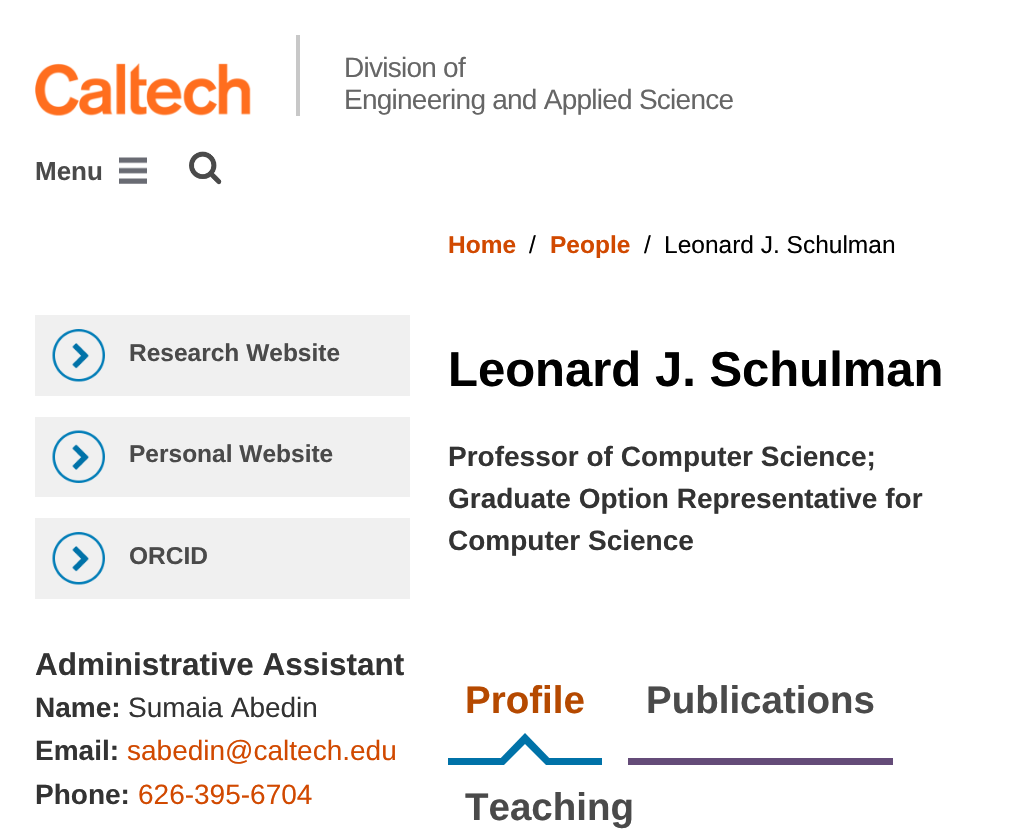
void draw(SkCanvas* c) {
SkPaint p;
p.setAntiAlias(true);
auto F=[&](const char* family, int weight, float size, bool italic = false){SkFontStyle style(weight, SkFontStyle::kNormal_Width,italic ? SkFontStyle::kItalic_Slant : SkFontStyle::kUpright_Slant);SkFont result(fontMgr->matchFamilyStyle(family, style), size);result.setSubpixel(true);return result;};
auto T=[&](const char* s, float x, float y, const SkFont& font){c->drawString(s, x, y, font, p);};
auto L=[&](const char* s, float x, float y, const SkFont& font, const SkPaint& ink, float letter, float word){std::vector<SkGlyphID> glyphs(font.countText(s, strlen(s), SkTextEncoding::kUTF8));std::vector<float> xs(glyphs.size());font.textToGlyphs(s, strlen(s), SkTextEncoding::kUTF8, glyphs);font.getXPos(glyphs, xs, x);float extra = 0;for (size_t i = 0; i < glyphs.size(); i++) {xs[i] += extra;extra += letter + word * (glyphs[i] == font.unicharToGlyph(' '));}c->drawTextBlob(SkTextBlob::MakeFromPosHGlyphs(glyphs, xs, y, font), 0, 0, ink);};
auto R=[&](float x, float y, float w, float h){c->drawRect(SkRect::MakeXYWH(x, y, w, h), p);};
auto I=[&](const char* path, float x, float y, float w, float h){auto image = SkImages::DeferredFromEncodedData(SkData::MakeFromFileName(path));c->drawImageRect(image, SkRect::MakeXYWH(x, y, w, h), SkSamplingOptions());};
auto P=[&](const char* data, bool evenOdd = false){SkPath result = *SkParsePath::FromSVGString(data);if (evenOdd) result.setFillType(SkPathFillType::kEvenOdd);return result;};
c->clear(0xffffffff);
I("1.png",35,63,216,53);
p.setColor(0xffc8c8c8);
R(296,35,4,81);
auto f1 = F("Liberation Sans",400,28);
p.setColor(0xff666666);
L("Division of",344,77,f1,p,-.75,0);
L("Engineering and Applied Science",344,109,f1,p,-.75,0);
auto f2 = F("Liberation Sans",700,26);
p.setColor(0xff4a4a4a);
T("Menu",35,180,f2);
I("2.png",119,157,28,27);
I("3.png",189,151,33,34);
p.setColor(0xfff0f0f0);
R(35,315,375,81);
I("4.png",52,329,53,53);
auto f3 = F("Liberation Sans",700,24.5);
p.setColor(0xff4a4a4a);
T("Research Website",129,361,f3);
p.setColor(0xfff0f0f0);
R(35,417,375,80);
I("5.png",52,430,53,53);
p.setColor(0xff4a4a4a);
T("Personal Website",129,462,f3);
p.setColor(0xfff0f0f0);
R(35,518,375,81);
I("4.png",52,532,53,53);
p.setColor(0xff4a4a4a);
T("ORCID",129,564,f3);
auto f4 = F("Liberation Sans",700,31.5);
p.setColor(0xff333333);
T("Administrative Assistant",35,675,f4);
auto f5 = F("Liberation Sans",700,28);
T("Name:",35,717,f5);
T("Sumaia Abedin",128,717,f1);
T("Email:",35,760,f5);
p.setColor(0xffd14900);
T("sabedin@caltech.edu",127,760,f1);
p.setColor(0xff333333);
T("Phone:",35,804,f5);
p.setColor(0xffd14900);
T("626-395-6704",138,804,f1);
T("Home",448,253,f3);
auto f6 = F("Liberation Sans",400,24.5);
p.setColor(0xff000000);
T("/",529,253,f6);
p.setColor(0xffd14900);
T("People",550,253,f3);
p.setColor(0xff000000);
T("/",644,253,f6);
T("Leonard J. Schulman",664,253,f6);
auto f7 = F("Liberation Sans",700,49);
T("Leonard J. Schulman",448,386,f7);
p.setColor(0xff333333);
T("Professor of Computer Science;",448,466,f5);
T("Graduate Option Representative for",448,508,f5);
T("Computer Science",448,550,f5);
p.setColor(0xff0072a8);
R(448,758,154,7);
auto f8 = F("Liberation Sans",700,38.5);
p.setColor(0xffb54900);
T("Profile",465,713,f8);
p.setColor(0xff0072a8);
c->drawPath(P("M556 765h-62l31-32z"),p);
p.setColor(0xffffffff);
c->drawPath(P("M546 765h-42l21-21z"),p);
p.setColor(0xff644b78);
R(628,758,265,7);
p.setColor(0xff4a4a4a);
T("Publications",646,713,f8);
T("Teaching",465,820,f8);
}
